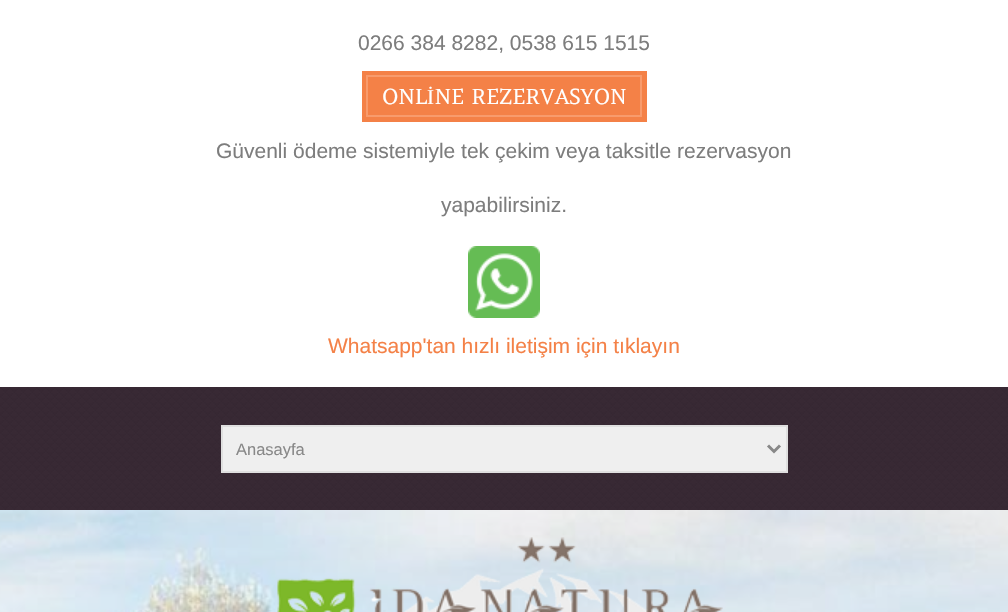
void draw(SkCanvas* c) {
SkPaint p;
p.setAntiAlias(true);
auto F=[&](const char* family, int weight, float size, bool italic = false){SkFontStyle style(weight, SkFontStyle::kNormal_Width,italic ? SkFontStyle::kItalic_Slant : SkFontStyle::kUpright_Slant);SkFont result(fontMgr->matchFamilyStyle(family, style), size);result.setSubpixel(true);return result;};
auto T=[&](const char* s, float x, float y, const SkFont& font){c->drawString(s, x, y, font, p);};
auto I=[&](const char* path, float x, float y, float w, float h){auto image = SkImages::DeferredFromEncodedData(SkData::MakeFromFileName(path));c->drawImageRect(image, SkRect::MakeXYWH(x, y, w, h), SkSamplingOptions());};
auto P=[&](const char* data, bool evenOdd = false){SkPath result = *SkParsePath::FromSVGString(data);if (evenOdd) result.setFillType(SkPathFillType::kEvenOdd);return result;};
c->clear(0xffffffff);
auto f1 = F("Liberation Sans",400,21);
p.setColor(0xff7d7d7d);
T("0266 384 8282, 0538 615 1515",358,50,f1);
p.setStroke(true);
p.setStrokeWidth(5);
p.setColor(0xfff48147);
c->drawRect(SkRect::MakeXYWH(364.5,73.5,280,46),p);
p.setStroke(false);
c->drawRect(SkRect::MakeXYWH(367,76,274,40),p);
p.setStroke(true);
p.setStrokeWidth(2);
p.setColor(0xfff89b6c);
c->drawRect(SkRect::MakeXYWH(367,76,274,40),p);
auto f2 = F("Amethysta",400,21);
p.setStroke(false);
p.setColor(0xffffffff);
T("ONL NE REZERVASYON",382,104,f2);
auto f3 = F("Liberation Serif",400,21);
T("İ",427,104,f3);
p.setColor(0xff7d7d7d);
T("Güvenli ödeme sistemiyle tek çekim veya taksitle rezervasyon",216,158,f1);
T("yapabilirsiniz.",441,212,f1);
I("1.png",468,246,72,72);
p.setColor(0xfff48147);
T("Whatsapp'tan hızlı iletişim için tıklayın",328,353,f1);
I("2.png",0,387,1008,123);
p.setColor(0xffefefef);
c->drawRect(SkRect::MakeXYWH(222,426,565,46),p);
p.setStroke(true);
p.setColor(0xffdfdfdf);
c->drawRect(SkRect::MakeXYWH(222,426,565,46),p);
p.setStrokeWidth(3);
p.setColor(0xff888888);
c->drawPath(P("M768 445.5l6 6l6-6"),p);
auto f4 = F("Liberation Sans",400,16.5);
p.setStroke(false);
T("Anasayfa",236,455,f4);
I("3.png",0,510,1008,102);
I("4.png",277,537,446,75);
}
